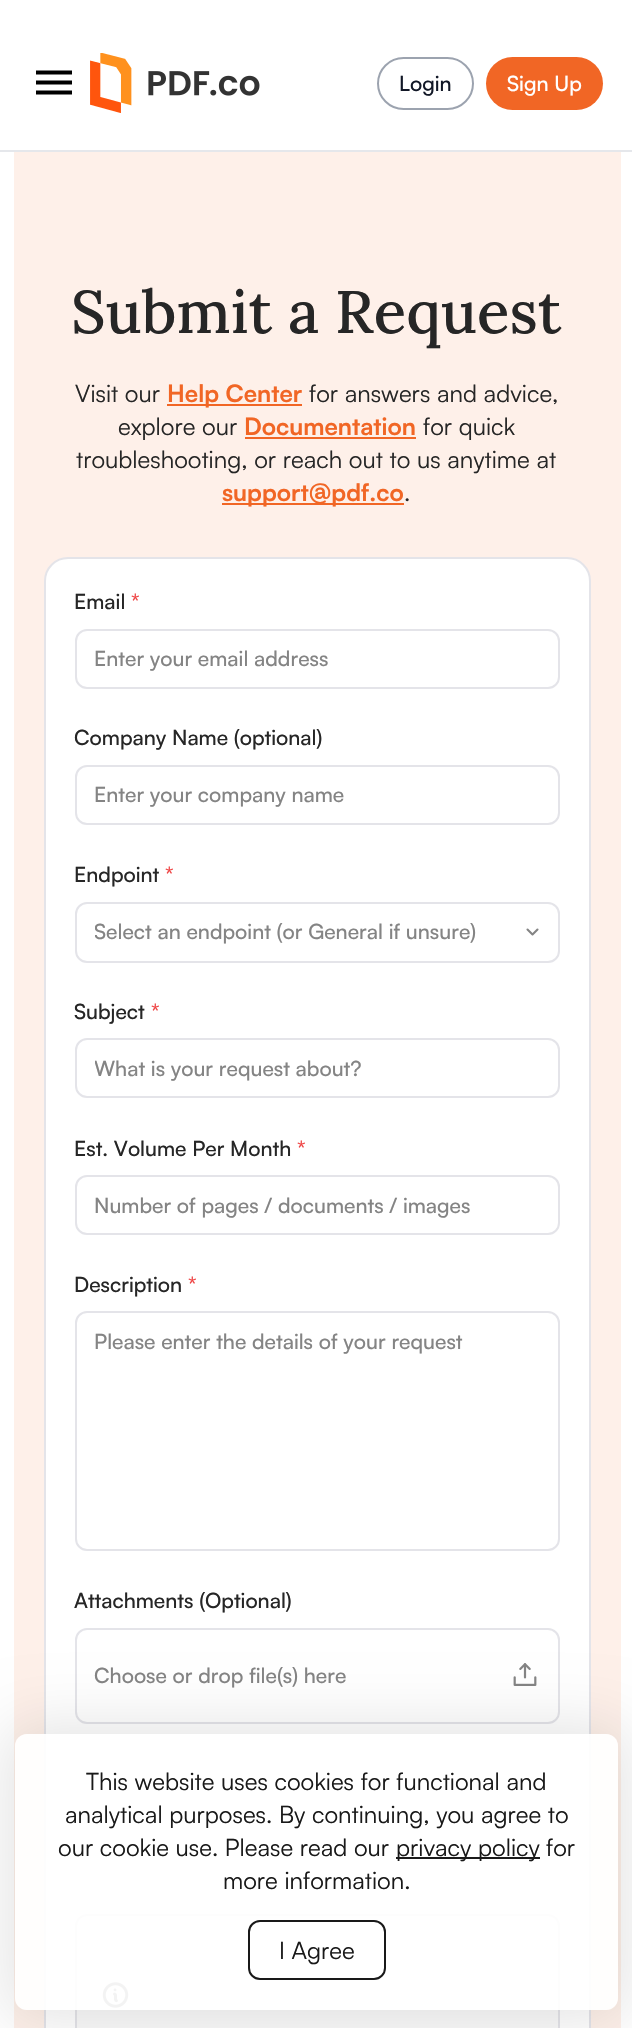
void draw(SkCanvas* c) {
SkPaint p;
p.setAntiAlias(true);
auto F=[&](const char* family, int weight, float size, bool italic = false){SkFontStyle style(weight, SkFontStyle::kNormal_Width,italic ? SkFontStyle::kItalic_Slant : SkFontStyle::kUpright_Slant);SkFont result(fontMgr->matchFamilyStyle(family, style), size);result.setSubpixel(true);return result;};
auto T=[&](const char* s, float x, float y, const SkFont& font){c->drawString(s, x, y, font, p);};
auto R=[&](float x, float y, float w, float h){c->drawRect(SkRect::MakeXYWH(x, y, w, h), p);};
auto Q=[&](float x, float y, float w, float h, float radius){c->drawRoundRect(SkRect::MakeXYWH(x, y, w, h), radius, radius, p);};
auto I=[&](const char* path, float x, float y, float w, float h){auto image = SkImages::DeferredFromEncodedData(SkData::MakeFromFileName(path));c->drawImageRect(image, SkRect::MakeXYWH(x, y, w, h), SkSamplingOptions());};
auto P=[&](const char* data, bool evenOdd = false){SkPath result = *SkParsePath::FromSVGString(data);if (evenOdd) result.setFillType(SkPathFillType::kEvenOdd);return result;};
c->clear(0xffffffff);
p.setColor(0xffe5e7eb);
R(0,150,632,2);
p.setColor(0xff000000);
c->drawPath(P("M36 94.5h36v-4h-36zm0-10h36v-4h-36zm0-14v4h36v-4z"),p);
I("1.png",90,53,170,60);
p.setStroke(true);
p.setStrokeWidth(2);
p.setColor(0xff9ca3af);
c->drawRoundRect(SkRect::MakeXYWH(378,58,95,51),25.5,25.5,p);
auto f1 = F("Satoshi",500,21);
p.setStroke(false);
p.setColor(0xff121827);
T("Login",399,91,f1);
p.setColor(0xfff16625);
Q(486,57,117,53,26.5);
p.setColor(0xffffffff);
T("Sign Up",507,91,f1);
p.setColor(0xfffef0e9);
R(14,152,607,1876);
auto f2 = F("Lora",500,60);
p.setColor(0xff262626);
T("Submit a Request",71,333,f2);
auto f3 = F("Satoshi",400,24);
T("Visit our",75,402,f3);
p.setColor(0xfff16625);
R(167,404,135,2);
auto f4 = F("Satoshi",700,24);
T("Help Center",167,402,f4);
p.setColor(0xff262626);
T("for answers and advice,",309,402,f3);
T("explore our",118,435,f3);
p.setColor(0xfff16625);
T("Documentation",244,435,f4);
R(245,437,171,2);
p.setColor(0xff262626);
T("for quick",423,435,f3);
T("troubleshooting, or reach out to us anytime at",76,468,f3);
p.setColor(0xfff16625);
R(222,503,182,2);
T("support@pdf.co",222,501,f4);
p.setColor(0xff262626);
T(".",404,501,f3);
p.setColor(0xffffffff);
c->drawRoundRect(SkRect::MakeXYWH(45,558,545,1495),23,23,p);
p.setStroke(true);
p.setColor(0xffe4e4e9);
c->drawRoundRect(SkRect::MakeXYWH(45,558,545,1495),23,23,p);
p.setStroke(false);
p.setColor(0xff262626);
T("Email",74,609,f1);
p.setColor(0xffef4444);
T("*",131,609,f1);
p.setStroke(true);
p.setColor(0xffe4e4e9);
c->drawRoundRect(SkRect::MakeXYWH(76,630,483,58),11,11,p);
p.setStroke(false);
p.setColor(0xff848484);
T("Enter your email address",94,666,f1);
p.setColor(0xff262626);
T("Company Name (optional)",74,745,f1);
p.setStroke(true);
p.setColor(0xffe4e4e9);
c->drawRoundRect(SkRect::MakeXYWH(76,766,483,58),11,11,p);
p.setStroke(false);
p.setColor(0xff848484);
T("Enter your company name",94,802,f1);
p.setColor(0xff262626);
T("Endpoint",74,882,f1);
p.setColor(0xffef4444);
T("*",165,882,f1);
p.setStroke(true);
p.setColor(0xffe4e4e9);
c->drawRoundRect(SkRect::MakeXYWH(76,903,483,59),11,11,p);
c->save();
c->clipRect(SkRect::MakeXYWH(95,918,445,27));
p.setStroke(false);
p.setColor(0xff848484);
T("Select an endpoint (or General if unsure)",94,939,f1);
c->restore();
p.setStroke(true);
p.setStrokeWidth(2.1);
p.setStrokeCap(SkPaint::kRound_Cap);
p.setStrokeJoin(SkPaint::kRound_Join);
c->drawPath(P("M537.5 929.5l-5 5l-5-5"),p);
p.setStroke(false);
p.setColor(0xff262626);
T("Subject",74,1019,f1);
p.setColor(0xffef4444);
T("*",151,1019,f1);
p.setStroke(true);
p.setStrokeWidth(2);
p.setStrokeCap(SkPaint::kButt_Cap);
p.setStrokeJoin(SkPaint::kMiter_Join);
p.setColor(0xffe4e4e9);
c->drawRoundRect(SkRect::MakeXYWH(76,1039,483,58),11,11,p);
c->save();
c->clipRect(SkRect::MakeXYWH(95,1055,445,27));
p.setStroke(false);
p.setColor(0xff848484);
T("What is your request about?",94,1076,f1);
c->restore();
p.setColor(0xff262626);
T("Est. Volume Per Month",74,1156,f1);
p.setColor(0xffef4444);
T("*",297,1156,f1);
p.setStroke(true);
p.setColor(0xffe4e4e9);
c->drawRoundRect(SkRect::MakeXYWH(76,1176,483,58),11,11,p);
p.setStroke(false);
p.setColor(0xff848484);
T("Number of pages / documents / images",94,1213,f1);
p.setColor(0xff262626);
T("Description",74,1292,f1);
p.setColor(0xffef4444);
T("*",188,1292,f1);
p.setStroke(true);
p.setColor(0xffe4e4e9);
c->drawRoundRect(SkRect::MakeXYWH(76,1312,483,238),11,11,p);
p.setStroke(false);
p.setColor(0xff848484);
T("Please enter the details of your request",94,1349,f1);
p.setColor(0xff262626);
T("Attachments (Optional)",74,1608,f1);
p.setStroke(true);
p.setColor(0xffe4e4e9);
c->drawRoundRect(SkRect::MakeXYWH(76,1629,483,94),11,11,p);
p.setStroke(false);
p.setColor(0xff848484);
T("Choose or drop file(s) here",94,1683,f1);
I("2.png",513,1663,24,23);
p.setColor(0xfffafafa);
c->drawRoundRect(SkRect::MakeXYWH(76,1915,483,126),11,11,p);
p.setStroke(true);
p.setColor(0xffe4e4e9);
c->drawRoundRect(SkRect::MakeXYWH(76,1915,483,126),11,11,p);
I("3.png",102,1982,27,26);
c->save();
c->clipPath(P("M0 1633h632v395h-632zm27 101h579c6.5 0 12 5.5 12 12v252c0 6.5-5.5 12-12 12h-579c-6.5 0-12-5.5-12-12v-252c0-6.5 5.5-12 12-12z",true),true);
p.setStroke(false);
p.setColor(0x1a000000);
p.setMaskFilter(SkMaskFilter::MakeBlur(kNormal_SkBlurStyle, 30));
c->drawRoundRect(SkRect::MakeXYWH(5,1724,624,297),23,23,p);
p.setMaskFilter(nullptr);
c->restore();
p.setColor(0xe6ffffff);
Q(15,1734,603,276,12);
p.setColor(0xff191919);
T("This website uses cookies for functional and",86,1790,f3);
T("analytical purposes. By continuing, you agree to",65,1823,f3);
T("our cookie use. Please read our",58,1856,f3);
p.setColor(0xff1a1a1a);
R(396,1857,144,2);
p.setColor(0xff191919);
T("privacy policy",396,1856,f3);
T("for",546,1856,f3);
T("more information.",223,1889,f3);
p.setStroke(true);
p.setColor(0xe6000000);
c->drawRoundRect(SkRect::MakeXYWH(249,1921,136,58),11,11,p);
p.setStroke(false);
p.setColor(0xff191919);
T("I Agree",279,1959,f3);
}
